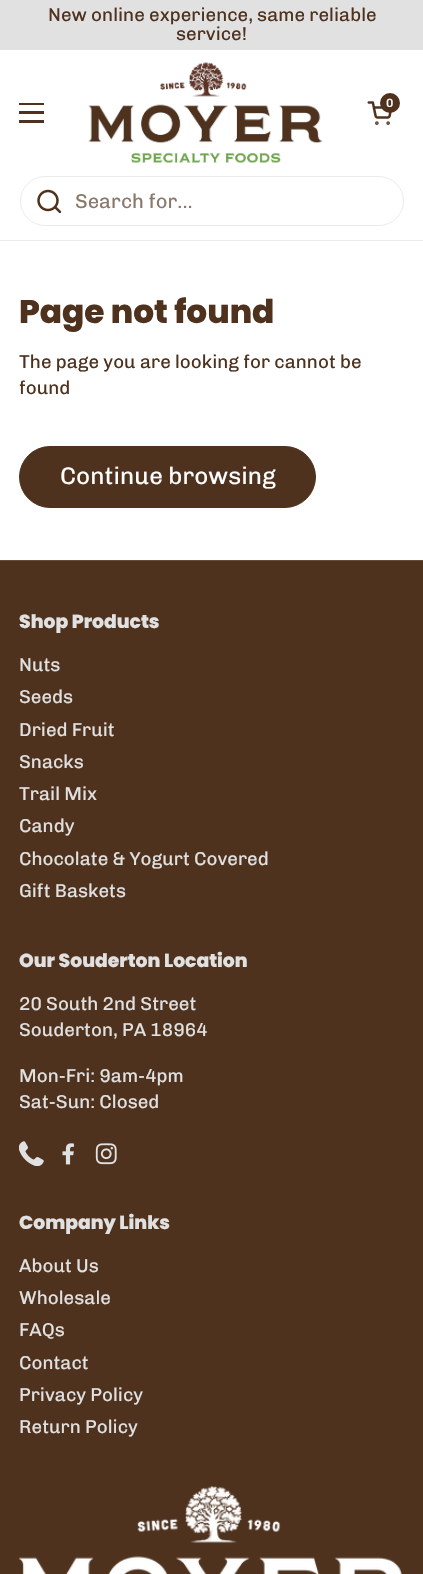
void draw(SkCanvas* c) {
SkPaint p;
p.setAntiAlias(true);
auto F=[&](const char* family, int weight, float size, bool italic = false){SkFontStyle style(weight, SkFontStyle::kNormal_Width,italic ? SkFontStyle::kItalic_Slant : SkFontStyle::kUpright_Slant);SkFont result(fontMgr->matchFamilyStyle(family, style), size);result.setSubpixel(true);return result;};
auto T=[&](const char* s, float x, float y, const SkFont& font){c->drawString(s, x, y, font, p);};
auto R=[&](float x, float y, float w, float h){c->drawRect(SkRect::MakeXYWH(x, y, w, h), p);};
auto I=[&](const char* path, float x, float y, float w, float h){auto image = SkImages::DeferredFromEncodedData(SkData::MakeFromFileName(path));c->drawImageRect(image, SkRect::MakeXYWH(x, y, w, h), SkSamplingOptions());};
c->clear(0xffffffff);
p.setColor(0xffe1e1e1);
R(0,0,423,50);
auto f1 = F("Chivo",400,18.6);
p.setColor(0xff4e321e);
T("New online experience, same reliable",48,21,f1);
T("service!",176,40,f1);
R(19,103,25,2);
R(19,111,25,3);
R(19,120,25,3);
I("1.png",88,62,235,101);
I("2.png",367,101,25,24);
c->drawCircle(390,103,10,p);
auto f2 = F("Chivo",500,12);
p.setColor(0xffffffff);
T("0",386,107,f2);
p.setColor(0xffedebe9);
R(0,240,423,1);
p.setStroke(true);
p.setStrokeWidth(1);
c->drawRoundRect(SkRect::MakeXYWH(20.5,176.5,383,49),24.5,24.5,p);
I("3.png",37,189,25,25);
auto f3 = F("Chivo",400,20);
p.setStroke(false);
p.setColor(0xff8a786b);
T("Search for...",75,208,f3);
auto f4 = F("Poppins",800,32.75);
p.setColor(0xff4e321e);
T("Page not found",19,323,f4);
T("The page you are looking for cannot be",19,368,f1);
T("found",19,394,f1);
c->drawRoundRect(SkRect::MakeXYWH(19.5,446.5,296,61),30.5,30.5,p);
p.setStroke(true);
c->drawRoundRect(SkRect::MakeXYWH(19.5,446.5,296,61),30.5,30.5,p);
auto f5 = F("Chivo",400,24);
p.setStroke(false);
p.setColor(0xffffffff);
T("Continue browsing",60,484,f5);
p.setColor(0xff4e321e);
R(0,561,423,1013);
p.setColor(0xff644c3b);
R(0,560,423,1);
auto f6 = F("Poppins",800,18.75);
p.setColor(0xffe1e1e1);
T("Shop Products",19,628,f6);
T("Nuts",19,671,f1);
T("Seeds",19,703,f1);
T("Dried Fruit",19,736,f1);
T("Snacks",19,768,f1);
T("Trail Mix",19,800,f1);
T("Candy",19,832,f1);
T("Chocolate & Yogurt Covered",19,865,f1);
T("Gift Baskets",19,897,f1);
T("Our Souderton Location",19,967,f6);
T("20 South 2nd Street",19,1010,f1);
T("Souderton, PA 18964",19,1036,f1);
T("Mon-Fri: 9am-4pm",19,1082,f1);
T("Sat-Sun: Closed",19,1108,f1);
I("4.png",19,1141,25,25);
I("5.png",62,1143,12,22);
I("6.png",95,1143,22,22);
T("Company Links",19,1229,f6);
T("About Us",19,1272,f1);
T("Wholesale",19,1304,f1);
T("FAQs",19,1336,f1);
T("Contact",19,1369,f1);
T("Privacy Policy",19,1401,f1);
T("Return Policy",19,1433,f1);
I("7.png",19,1486,383,88);
}
